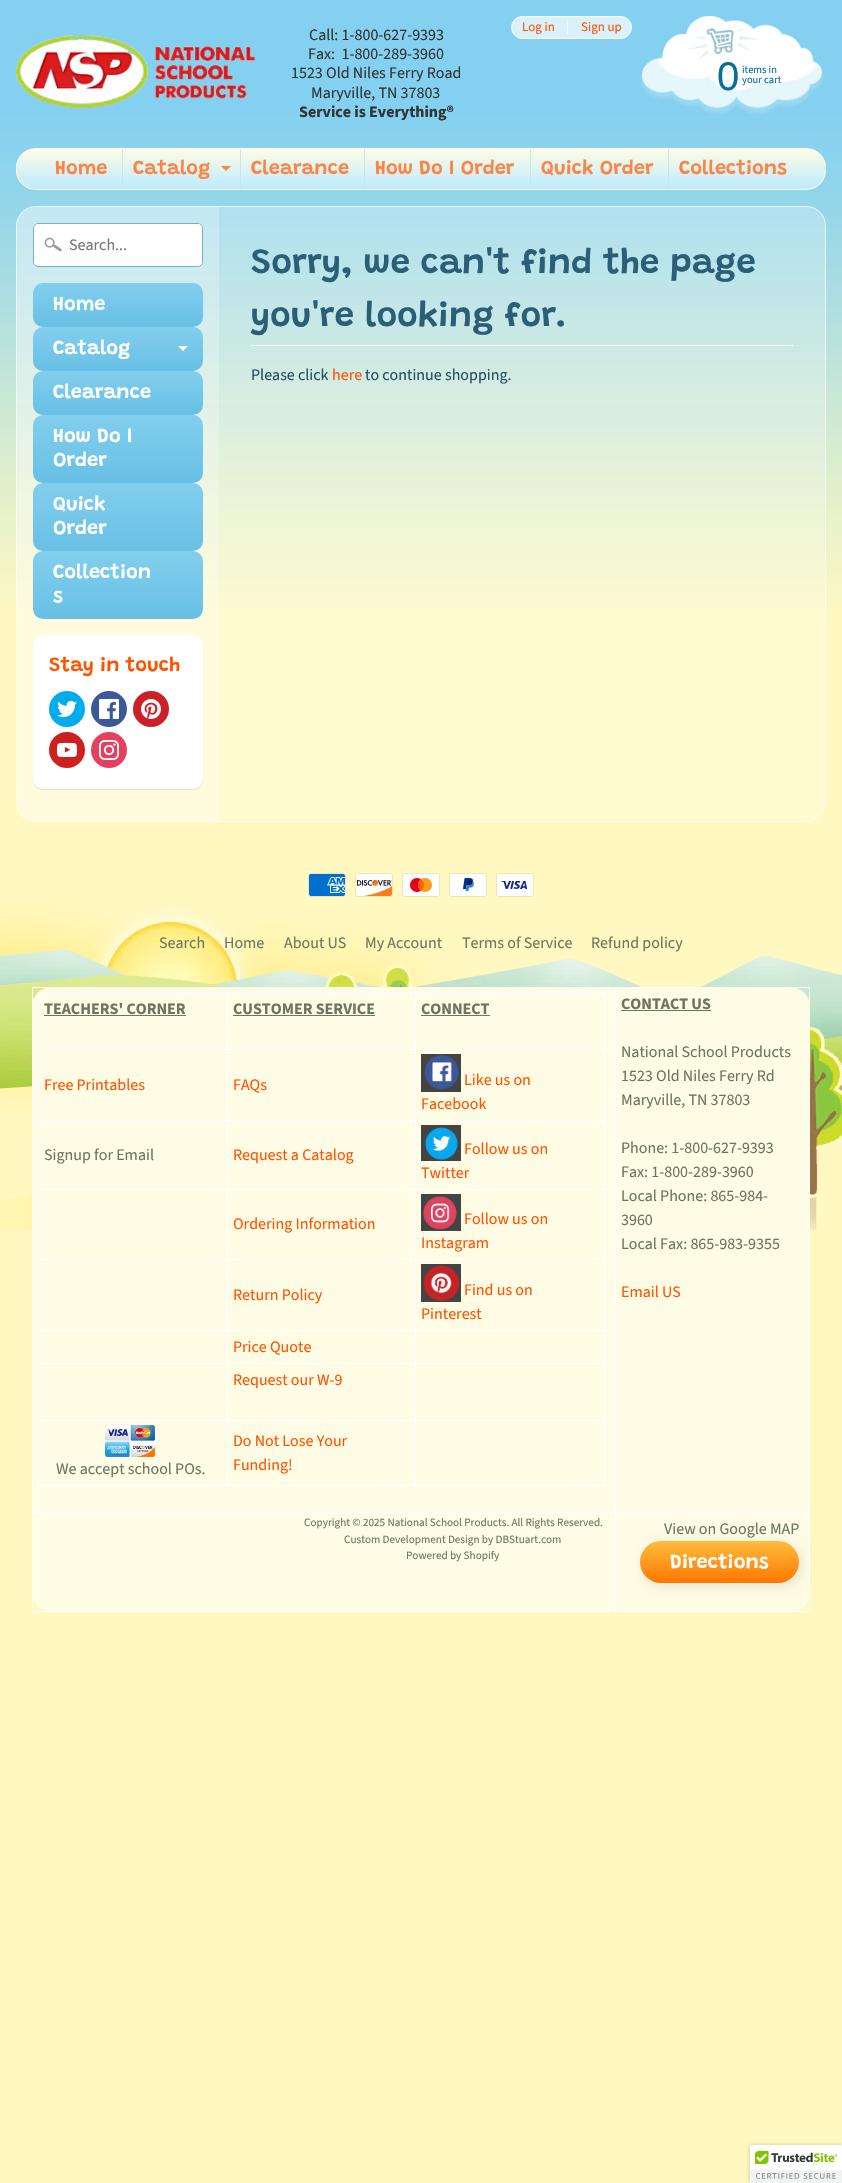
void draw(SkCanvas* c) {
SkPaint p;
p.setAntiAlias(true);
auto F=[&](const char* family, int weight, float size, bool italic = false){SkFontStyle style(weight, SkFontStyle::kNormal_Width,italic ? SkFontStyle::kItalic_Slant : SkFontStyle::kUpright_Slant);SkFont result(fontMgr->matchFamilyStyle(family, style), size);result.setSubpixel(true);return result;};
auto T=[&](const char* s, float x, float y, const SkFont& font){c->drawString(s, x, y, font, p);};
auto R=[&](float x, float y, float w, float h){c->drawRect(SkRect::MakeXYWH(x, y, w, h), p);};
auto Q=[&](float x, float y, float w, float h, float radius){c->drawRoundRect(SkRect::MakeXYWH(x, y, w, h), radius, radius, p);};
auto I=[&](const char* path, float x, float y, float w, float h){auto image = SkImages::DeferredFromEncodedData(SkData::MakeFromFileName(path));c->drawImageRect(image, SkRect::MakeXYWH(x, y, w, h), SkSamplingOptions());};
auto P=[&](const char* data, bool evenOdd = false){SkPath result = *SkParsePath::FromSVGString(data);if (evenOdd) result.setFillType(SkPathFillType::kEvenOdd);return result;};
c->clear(0xfffff9c1);
I("1.png",0,0,842,607);
I("2.png",16,35,240,74);
auto f1 = F("Source Sans Pro",400,16);
p.setColor(0xff333333);
T("Call: 1-800-627-9393",309,40,f1);
T("Fax:  1-800-289-3960",308,59,f1);
T("1523 Old Niles Ferry Road",291,78,f1);
T("Maryville, TN 37803",311,98,f1);
auto f2 = F("Source Sans Pro",700,16);
T("Service is Everything®",299,117,f2);
p.setColor(0xffdaf1fb);
c->drawRoundRect(SkRect::MakeXYWH(511.5,16.5,120,22),11,11,p);
p.setStroke(true);
p.setStrokeWidth(1);
p.setColor(0xffffffff);
c->drawRoundRect(SkRect::MakeXYWH(511.5,16.5,120,22),11,11,p);
auto f3 = F("Source Sans Pro",400,13);
p.setStroke(false);
p.setColor(0xffff5300);
T("Log in",522,31,f3);
p.setColor(0xffffffff);
T("|",566,31,f3);
p.setColor(0xffff5300);
T("Sign up",581,31,f3);
I("3.png",640,16,184,99);
auto f4 = F("Liberation Sans",400,40);
p.setColor(0xff0a6e99);
T("0",717,90,f4);
auto f5 = F("Source Sans Pro",400,10.5);
T("items in",742,73,f5);
T("your cart",742,83,f5);
c->save();
c->clipPath(P("M36 148h770c11 0 20 9 20 20v2c0 11-9 20-20 20h-770c-11 0-20-9-20-20v-2c0-11 9-20 20-20z"),true);
{
const SkColor colors[] = {0xfffffce5,0xffbcebff};
const float stops[] = {0,1};
const SkPoint ends[] = {{421,149}, {421,189}};
p.setShader(SkGradientShader::MakeLinear(ends, colors, stops, 2, SkTileMode::kClamp));
p.setAlpha(255);
}
R(16,149,810,40);
c->restore();
p.setStroke(true);
p.setShader(nullptr);
p.setColor(0xfffffce5);
c->drawRoundRect(SkRect::MakeXYWH(16.5,148.5,809,41),19.5,19.5,p);
auto f6 = F("Grandstander",600,20);
p.setStroke(false);
p.setColor(0xfffe8345);
T("Home",55,174,f6);
p.setColor(0xffc3e7ea);
R(122,149,1,40);
p.setColor(0xfffe8345);
T("Catalog",133,174,f6);
c->drawPath(P("M221 166h10l-5 5z"),p);
p.setColor(0xffc3e7ea);
R(240,149,1,40);
p.setColor(0xfffe8345);
T("Clearance",251,174,f6);
p.setColor(0xffc3e7ea);
R(364,149,1,40);
p.setColor(0xfffe8345);
T("How Do I Order",375,174,f6);
p.setColor(0xffc3e7ea);
R(530,149,1,40);
p.setColor(0xfffe8345);
T("Quick Order",541,174,f6);
p.setColor(0xffc3e7ea);
R(668,149,1,40);
p.setColor(0xfffe8345);
T("Collections",679,174,f6);
p.setColor(0x40ffffff);
Q(16,206,810,616,20);
p.setStroke(true);
p.setColor(0xb3ffffff);
c->drawRoundRect(SkRect::MakeXYWH(16.5,206.5,809,615),19.5,19.5,p);
p.setStroke(false);
p.setColor(0x40ffffff);
c->drawPath(P("M36 207h183v614h-183c-10.5 0-19-8.5-19-19v-576c0-10.5 8.5-19 19-19z"),p);
p.setColor(0xffffffff);
Q(33,223,170,44,5);
I("4.png",44,237,18,15);
p.setStroke(true);
p.setColor(0xff70b1cc);
c->drawRoundRect(SkRect::MakeXYWH(33.5,223.5,169,43),4.5,4.5,p);
p.setStroke(false);
p.setColor(0xff757575);
T("Search...",69,250,f1);
{
const SkColor colors[] = {0xff83ceee,0xff67c0e5};
const float stops[] = {0,1};
const SkPoint ends[] = {{118,283}, {118,327}};
p.setShader(SkGradientShader::MakeLinear(ends, colors, stops, 2, SkTileMode::kClamp));
p.setAlpha(255);
}
Q(33,283,170,44,10);
p.setShader(nullptr);
p.setColor(0xffffffff);
T("Home",53,310,f6);
{
const SkColor colors[] = {0xff83ceee,0xff67c0e5};
const float stops[] = {0,1};
const SkPoint ends[] = {{118,327}, {118,371}};
p.setShader(SkGradientShader::MakeLinear(ends, colors, stops, 2, SkTileMode::kClamp));
p.setAlpha(255);
}
Q(33,327,170,44,10);
p.setShader(nullptr);
p.setColor(0xffffffff);
T("Catalog",53,354,f6);
c->drawPath(P("M178 346h10l-5 5z"),p);
{
const SkColor colors[] = {0xff83ceee,0xff67c0e5};
const float stops[] = {0,1};
const SkPoint ends[] = {{118,371}, {118,415}};
p.setShader(SkGradientShader::MakeLinear(ends, colors, stops, 2, SkTileMode::kClamp));
p.setAlpha(255);
}
Q(33,371,170,44,10);
p.setShader(nullptr);
p.setColor(0xffffffff);
T("Clearance",53,398,f6);
{
const SkColor colors[] = {0xff83ceee,0xff67c0e5};
const float stops[] = {0,1};
const SkPoint ends[] = {{118,415}, {118,483}};
p.setShader(SkGradientShader::MakeLinear(ends, colors, stops, 2, SkTileMode::kClamp));
p.setAlpha(255);
}
Q(33,415,170,68,10);
p.setShader(nullptr);
p.setColor(0xffffffff);
T("How Do I",53,442,f6);
T("Order",53,466,f6);
{
const SkColor colors[] = {0xff83ceee,0xff67c0e5};
const float stops[] = {0,1};
const SkPoint ends[] = {{118,483}, {118,551}};
p.setShader(SkGradientShader::MakeLinear(ends, colors, stops, 2, SkTileMode::kClamp));
p.setAlpha(255);
}
Q(33,483,170,68,10);
p.setShader(nullptr);
p.setColor(0xffffffff);
T("Quick",53,510,f6);
T("Order",53,534,f6);
{
const SkColor colors[] = {0xff83ceee,0xff67c0e5};
const float stops[] = {0,1};
const SkPoint ends[] = {{118,551}, {118,619}};
p.setShader(SkGradientShader::MakeLinear(ends, colors, stops, 2, SkTileMode::kClamp));
p.setAlpha(255);
}
Q(33,551,170,68,10);
p.setShader(nullptr);
p.setColor(0xffffffff);
T("Collection",53,578,f6);
T("s",53,602,f6);
p.setColor(0x1a000000);
p.setMaskFilter(SkMaskFilter::MakeBlur(kNormal_SkBlurStyle, .5));
c->drawRoundRect(SkRect::MakeXYWH(33,636,170,154),10,10,p);
p.setMaskFilter(nullptr);
p.setColor(0xffffffff);
Q(33,635,170,154,10);
p.setColor(0xffff5300);
T("Stay in touch",49,671,f6);
p.setColor(0xff00aced);
c->drawCircle(67,709,18,p);
I("5.png",57,700,20,18);
p.setColor(0xff3b5998);
c->drawCircle(109,709,18,p);
I("6.png",99,699,20,20);
p.setColor(0xffcb2027);
c->drawCircle(151,709,18,p);
I("7.png",141,699,20,20);
p.setColor(0xffcd201f);
c->drawCircle(67,750,18,p);
I("8.png",57,742,20,15);
p.setColor(0xffe4405f);
c->drawCircle(109,750,18,p);
I("9.png",99,740,20,20);
p.setColor(0xffffffff);
R(251,345,542,1);
auto f7 = F("Grandstander",600,35.25);
p.setColor(0xff2b5f77);
T("Sorry, we can't find the page",251,273,f7);
T("you're looking for.",251,326,f7);
p.setColor(0xff234d61);
T("Please click",251,380,f1);
p.setColor(0xffff5300);
T("here",332,380,f1);
p.setColor(0xff234d61);
T("to continue shopping.",365,380,f1);
I("10.png",0,896,842,334);
I("11.png",308,873,38,24);
I("12.png",355,873,38,24);
I("13.png",402,873,38,24);
I("14.png",449,873,38,24);
I("15.png",496,873,38,24);
p.setColor(0xff6b765f);
T("Search",159,948,f1);
T("Home",224,948,f1);
T("About US",284,948,f1);
T("My Account",365,948,f1);
T("Terms of Service",462,948,f1);
T("Refund policy",591,948,f1);
p.setColor(0xfffffce5);
Q(32,987,778,625,20);
p.setColor(0xffffffff);
R(615,987,195,1);
R(615,1512,195,1);
R(809,1512,1,100);
R(615,1611,195,1);
R(615,1512,1,100);
R(32,1512,584,1);
R(615,987,1,526);
R(32,987,584,1);
R(32,1611,584,1);
R(32,1512,1,100);
R(32,987,1,526);
R(415,992,190,1);
R(415,1049,190,1);
R(415,1120,190,1);
R(415,1189,190,1);
R(415,1259,190,1);
R(415,1330,190,1);
R(415,1363,190,1);
R(415,1420,190,1);
R(604,1420,1,66);
R(415,1485,190,1);
R(415,1420,1,66);
R(227,1420,189,1);
R(415,1363,1,58);
R(227,1363,189,1);
R(415,1330,1,34);
R(227,1330,189,1);
R(415,1259,1,72);
R(227,1259,189,1);
R(415,1189,1,71);
R(227,1189,189,1);
R(415,1120,1,70);
R(227,1120,189,1);
R(415,1049,1,72);
R(227,1049,189,1);
R(415,992,1,58);
R(227,992,189,1);
R(227,1485,189,1);
R(227,1420,1,66);
R(38,1420,190,1);
R(227,1363,1,58);
R(38,1363,190,1);
R(227,1330,1,34);
R(38,1330,190,1);
R(227,1259,1,72);
R(38,1259,190,1);
R(227,1189,1,71);
R(38,1189,190,1);
R(227,1120,1,70);
R(38,1120,190,1);
R(227,1049,1,72);
R(38,1049,190,1);
R(227,992,1,58);
R(38,992,190,1);
R(38,1485,190,1);
R(38,1420,1,66);
R(38,1363,1,58);
R(38,1330,1,34);
R(38,1259,1,72);
R(38,1189,1,71);
R(38,1120,1,70);
R(38,1049,1,72);
R(38,992,1,58);
p.setColor(0xff6b765f);
T("TEACHERS' CORNER",44,1014,f2);
R(44,1015,142,1);
T("CUSTOMER SERVICE",233,1014,f2);
R(233,1015,142,1);
p.setColor(0xffffffff);
R(604,1363,1,58);
R(604,1330,1,34);
R(604,1259,1,72);
R(604,1189,1,71);
R(604,1120,1,70);
R(604,1049,1,72);
R(604,992,1,58);
p.setColor(0xff6b765f);
T("CONNECT",421,1014,f2);
R(421,1015,69,1);
p.setColor(0xffff5300);
T("Free Printables",44,1090,f1);
T("FAQs",233,1090,f1);
I("16.png",421,1054,40,38);
T("Like us on",464,1085,f1);
T("Facebook",421,1109,f1);
p.setColor(0xff6b765f);
T("Signup for Email",44,1160,f1);
p.setColor(0xffff5300);
T("Request a Catalog",233,1160,f1);
I("17.png",421,1125,40,36);
T("Follow us on",464,1154,f1);
T("Twitter",421,1178,f1);
T("Ordering Information",233,1229,f1);
I("18.png",421,1194,40,37);
T("Follow us on",464,1224,f1);
T("Instagram",421,1248,f1);
T("Return Policy",233,1300,f1);
I("19.png",421,1264,40,38);
T("Find us on",464,1295,f1);
T("Pinterest",421,1319,f1);
T("Price Quote",233,1352,f1);
T("Request our W-9",233,1385,f1);
I("20.png",105,1425,50,32);
p.setColor(0xff6b765f);
T("We accept school POs.",56,1474,f1);
p.setColor(0xffff5300);
T("Do Not Lose Your",233,1446,f1);
T("Funding!",233,1470,f1);
p.setColor(0xffffffff);
R(809,987,1,526);
p.setColor(0xff6b765f);
T("CONTACT US",621,1009,f2);
R(621,1010,90,1);
T("National School Products",621,1057,f1);
T("1523 Old Niles Ferry Rd",621,1081,f1);
T("Maryville, TN 37803",621,1105,f1);
T("Phone: 1-800-627-9393",621,1153,f1);
T("Fax: 1-800-289-3960",621,1177,f1);
T("Local Phone: 865-984-",621,1201,f1);
T("3960",621,1225,f1);
T("Local Fax: 865-983-9355",621,1249,f1);
p.setColor(0xffff5300);
T("Email US",621,1297,f1);
p.setColor(0xff6b765f);
T("View on Google MAP",664,1534,f1);
p.setColor(0x1a000000);
p.setMaskFilter(SkMaskFilter::MakeBlur(kNormal_SkBlurStyle, 6));
c->drawRoundRect(SkRect::MakeXYWH(643,1544,159,42),21,21,p);
p.setMaskFilter(nullptr);
{
const SkColor colors[] = {0xffffbd3e,0xffff7700};
const float stops[] = {0,1};
const SkPoint ends[] = {{720,1541}, {720,1583}};
p.setShader(SkGradientShader::MakeLinear(ends, colors, stops, 2, SkTileMode::kClamp));
p.setAlpha(255);
}
Q(640,1541,159,42,21);
p.setShader(nullptr);
p.setColor(0xffffffff);
T("Directions",670,1568,f6);
auto f8 = F("Source Sans Pro",400,11.2);
p.setColor(0xff6b765f);
T("Copyright © 2025 National School Products. All Rights Reserved.",304,1526,f8);
T("Custom Development Design by DBStuart.com",344,1543,f8);
T("Powered by Shopify",406,1559,f8);
p.setColor(0x33000000);
p.setMaskFilter(SkMaskFilter::MakeBlur(kNormal_SkBlurStyle, 2.5));
c->drawRoundRect(SkRect::MakeXYWH(750,2145,92,38),2,2,p);
p.setMaskFilter(nullptr);
p.setColor(0xffffffff);
c->drawPath(P("M752 2145h90v38h-92v-36c0-1 1-2 2-2z"),p);
I("21.png",750,2145,92,38);
}
